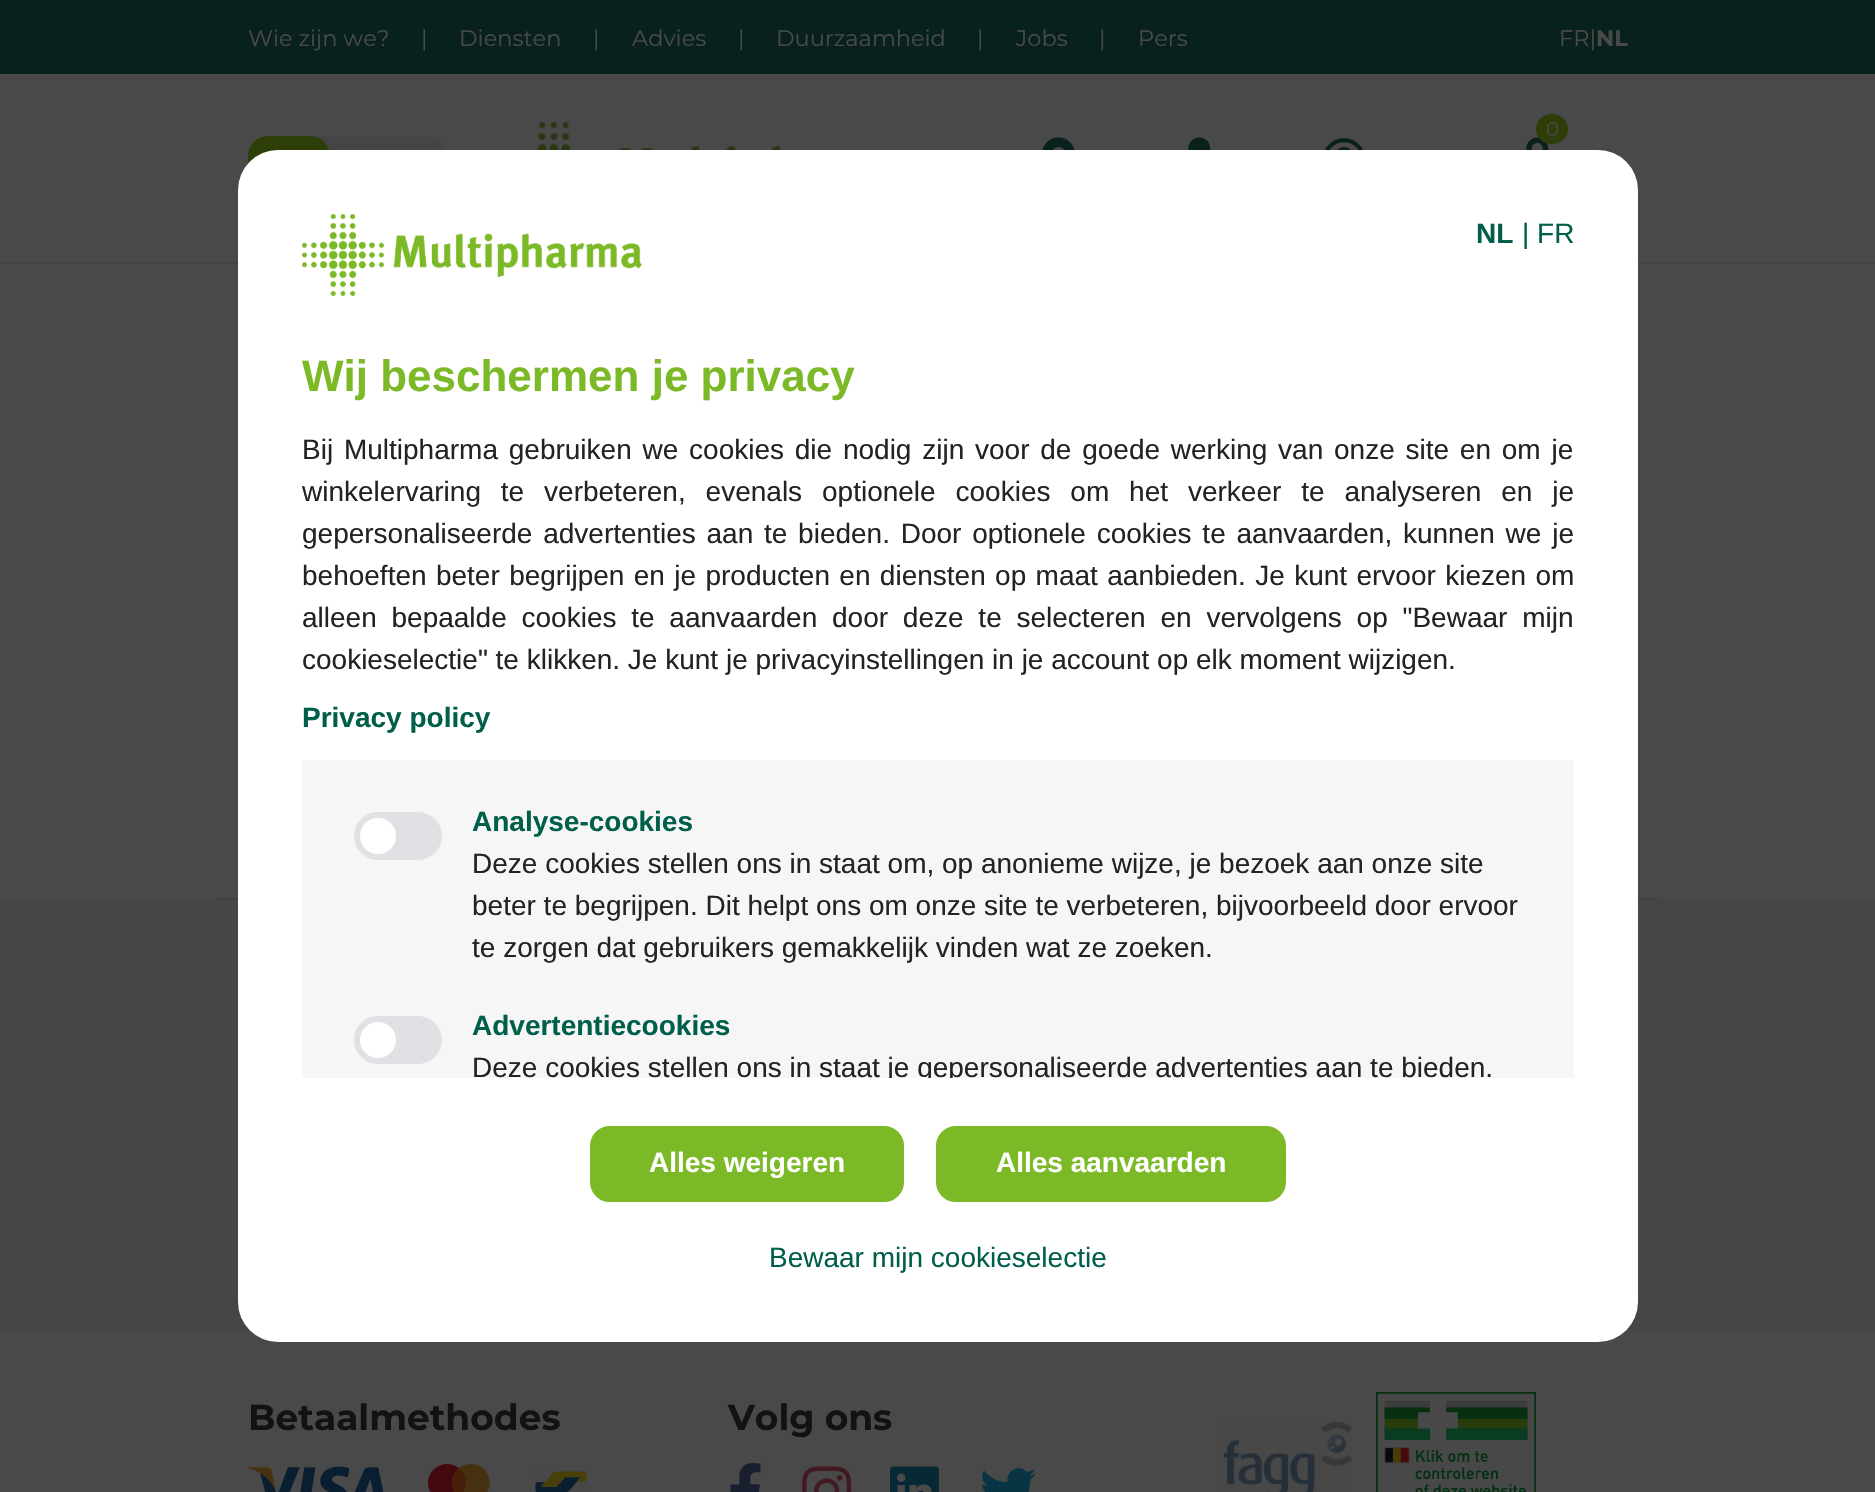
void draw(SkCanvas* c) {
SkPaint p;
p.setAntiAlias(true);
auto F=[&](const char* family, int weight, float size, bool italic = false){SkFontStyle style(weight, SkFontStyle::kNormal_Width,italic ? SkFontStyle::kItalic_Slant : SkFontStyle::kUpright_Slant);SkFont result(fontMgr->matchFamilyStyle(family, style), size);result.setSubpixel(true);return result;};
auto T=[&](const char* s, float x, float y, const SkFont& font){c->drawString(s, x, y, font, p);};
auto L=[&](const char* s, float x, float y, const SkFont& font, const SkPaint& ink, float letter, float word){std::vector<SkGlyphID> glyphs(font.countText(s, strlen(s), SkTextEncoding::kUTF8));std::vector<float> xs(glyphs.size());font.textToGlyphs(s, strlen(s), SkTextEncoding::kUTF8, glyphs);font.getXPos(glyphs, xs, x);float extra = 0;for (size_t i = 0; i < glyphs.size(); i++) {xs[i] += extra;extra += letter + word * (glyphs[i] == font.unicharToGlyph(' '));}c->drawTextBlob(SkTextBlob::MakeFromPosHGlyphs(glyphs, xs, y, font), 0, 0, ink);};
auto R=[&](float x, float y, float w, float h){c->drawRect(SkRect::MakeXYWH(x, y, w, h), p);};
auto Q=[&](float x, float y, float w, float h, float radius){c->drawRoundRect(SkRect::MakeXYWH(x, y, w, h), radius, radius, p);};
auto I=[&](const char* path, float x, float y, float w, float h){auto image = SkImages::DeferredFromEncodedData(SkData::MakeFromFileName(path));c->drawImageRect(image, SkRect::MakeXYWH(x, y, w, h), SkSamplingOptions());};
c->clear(0xff494949);
p.setColor(0xff09211c);
R(0,0,1875,74);
auto f1 = F("Montserrat",400,22.5);
p.setColor(0xff494949);
T("Wie zijn we?",248,46,f1);
T("|",421,46,f1);
T("Diensten",459,46,f1);
T("|",593,46,f1);
T("Advies",632,46,f1);
T("|",738,46,f1);
T("Duurzaamheid",776,46,f1);
T("|",977,46,f1);
T("Jobs",1016,46,f1);
T("|",1099,46,f1);
T("Pers",1138,46,f1);
T("FR|",1559,46,f1);
auto f2 = F("Montserrat",700,22.5);
T("NL",1596,46,f2);
p.setColor(0xff454545);
Q(248,136,198,80,20);
p.setColor(0xff2e3e09);
Q(248,136,82,80,20);
I("1.png",537,122,244,28);
I("2.png",1042,137,33,13);
I("3.png",1188,137,23,13);
I("4.png",1324,138,39,12);
I("5.png",1526,137,23,13);
Q(1536,114,32,30,15);
auto f3 = F("Montserrat",400,20);
p.setColor(0xff494949);
T("0",1546,136,f3);
p.setColor(0xff414243);
R(0,262,1875,2);
p.setColor(0xff464646);
R(0,898,1875,434);
p.setColor(0xff414243);
R(218,898,20,2);
R(1638,898,20,2);
auto f4 = F("Montserrat",700,36);
p.setColor(0xff121212);
T("Betaalmethodes",248,1430,f4);
I("6.png",248,1466,136,26);
I("7.png",428,1464,62,28);
I("8.png",535,1471,52,21);
T("Volg ons",728,1430,f4);
I("9.png",730,1463,31,29);
I("10.png",802,1466,50,26);
I("11.png",890,1466,49,26);
I("12.png",982,1468,54,24);
I("13.png",1222,1421,130,71);
I("14.png",1376,1392,160,100);
p.setColor(0xffffffff);
Q(238,150,1400,1192,40);
I("15.png",302,214,340,82);
auto f5 = F("Liberation Sans",700,28);
p.setColor(0xff005f4b);
T("NL",1476,243,f5);
auto f6 = F("Liberation Sans",400,28);
T("| FR",1522,243,f6);
auto f7 = F("Liberation Sans",700,44);
p.setColor(0xff7cb927);
T("Wij beschermen je privacy",302,391,f7);
p.setColor(0xff232323);
L("Bij Multipharma gebruiken we cookies die nodig zijn voor de goede werking van onze site en om je",302,459,f6,p,0,3);
L("winkelervaring te verbeteren, evenals optionele cookies om het verkeer te analyseren en je",302,501,f6,p,0,12.1);
L("gepersonaliseerde advertenties aan te bieden. Door optionele cookies te aanvaarden, kunnen we je",302,543,f6,p,0,3);
L("behoeften beter begrijpen en je producten en diensten op maat aanbieden. Je kunt ervoor kiezen om",302,585,f6,p,0,1.6);
L("alleen bepaalde cookies te aanvaarden door deze te selecteren en vervolgens op \"Bewaar mijn",302,627,f6,p,0,7);
T("cookieselectie\" te klikken. Je kunt je privacyinstellingen in je account op elk moment wijzigen.",302,669,f6);
p.setColor(0xff005f4b);
T("Privacy policy",302,727,f5);
p.setColor(0xfff6f6f6);
R(302,760,1272,318);
p.setColor(0xffdfe1e4);
Q(354,812,88,48,24);
p.setColor(0xffffffff);
c->drawCircle(378,836,18,p);
p.setColor(0xff005f4b);
T("Analyse-cookies",472,831,f5);
p.setColor(0xff232323);
T("Deze cookies stellen ons in staat om, op anonieme wijze, je bezoek aan onze site",472,873,f6);
T("beter te begrijpen. Dit helpt ons om onze site te verbeteren, bijvoorbeeld door ervoor",472,915,f6);
T("te zorgen dat gebruikers gemakkelijk vinden wat ze zoeken.",472,957,f6);
p.setColor(0xffdfe1e4);
Q(354,1016,88,48,24);
p.setColor(0xffffffff);
c->drawCircle(378,1040,18,p);
p.setColor(0xff005f4b);
T("Advertentiecookies",472,1035,f5);
c->save();
c->clipRect(SkRect::MakeXYWH(302,430,1272,648));
p.setColor(0xff232323);
T("Deze cookies stellen ons in staat je gepersonaliseerde advertenties aan te bieden.",472,1077,f6);
c->restore();
p.setColor(0xff7cb927);
c->drawRoundRect(SkRect::MakeXYWH(591,1127,312,74),19,19,p);
p.setStroke(true);
p.setStrokeWidth(2);
c->drawRoundRect(SkRect::MakeXYWH(591,1127,312,74),19,19,p);
p.setStroke(false);
p.setColor(0xffffffff);
T("Alles weigeren",649,1172,f5);
p.setColor(0xff7cb927);
c->drawRoundRect(SkRect::MakeXYWH(937,1127,348,74),19,19,p);
p.setStroke(true);
c->drawRoundRect(SkRect::MakeXYWH(937,1127,348,74),19,19,p);
p.setStroke(false);
p.setColor(0xffffffff);
T("Alles aanvaarden",996,1172,f5);
p.setColor(0xff005f4b);
T("Bewaar mijn cookieselectie",769,1267,f6);
}
